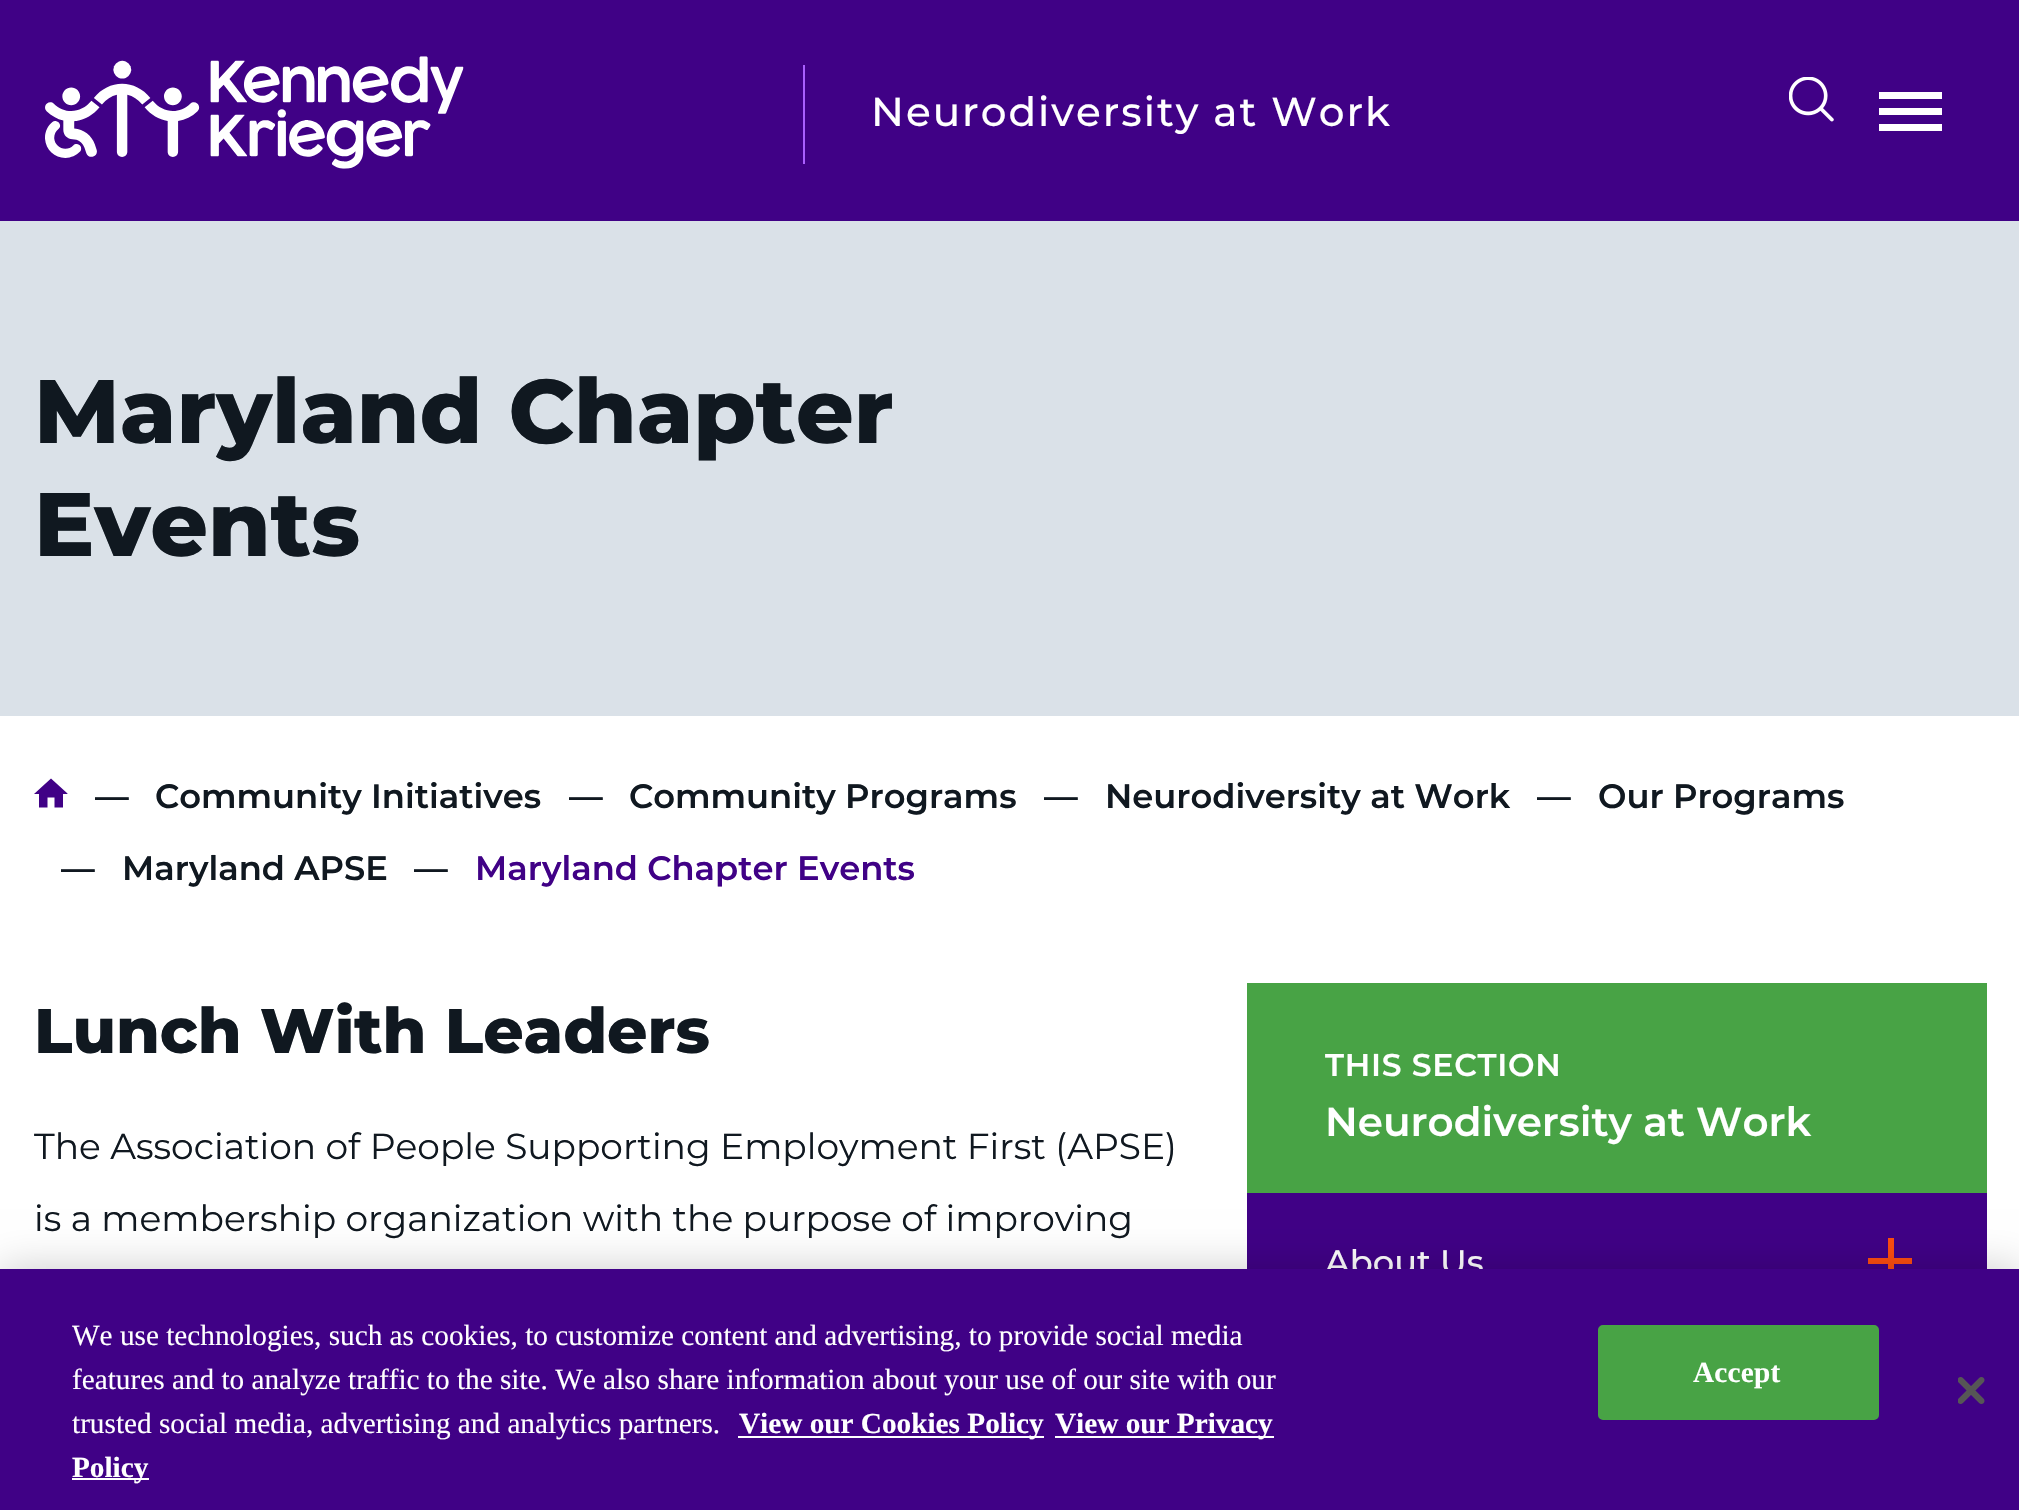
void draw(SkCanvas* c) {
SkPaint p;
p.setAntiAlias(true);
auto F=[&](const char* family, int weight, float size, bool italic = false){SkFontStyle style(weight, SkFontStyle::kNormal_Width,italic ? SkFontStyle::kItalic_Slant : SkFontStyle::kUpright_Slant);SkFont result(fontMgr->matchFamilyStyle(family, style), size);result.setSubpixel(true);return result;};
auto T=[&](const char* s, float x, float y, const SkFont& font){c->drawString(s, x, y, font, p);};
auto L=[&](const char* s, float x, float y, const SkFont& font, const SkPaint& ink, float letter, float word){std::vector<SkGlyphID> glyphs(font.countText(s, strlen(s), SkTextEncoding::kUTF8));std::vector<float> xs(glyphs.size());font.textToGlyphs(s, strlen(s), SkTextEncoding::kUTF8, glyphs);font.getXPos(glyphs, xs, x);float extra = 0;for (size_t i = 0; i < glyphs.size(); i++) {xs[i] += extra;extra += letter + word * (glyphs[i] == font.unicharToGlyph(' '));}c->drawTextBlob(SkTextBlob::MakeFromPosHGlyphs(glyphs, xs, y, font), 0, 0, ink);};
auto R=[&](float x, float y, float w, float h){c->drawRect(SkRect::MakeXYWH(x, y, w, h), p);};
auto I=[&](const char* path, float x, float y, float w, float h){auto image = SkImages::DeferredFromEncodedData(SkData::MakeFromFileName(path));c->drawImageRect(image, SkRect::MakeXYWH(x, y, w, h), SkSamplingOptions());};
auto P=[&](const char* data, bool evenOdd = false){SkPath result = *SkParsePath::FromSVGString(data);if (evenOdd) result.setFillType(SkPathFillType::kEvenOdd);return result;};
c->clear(0xffffffff);
p.setColor(0xff400186);
R(0,0,2019,221);
I("1.png",45,56,419,113);
p.setColor(0xffaa5ffe);
R(803,65,2,99);
auto f1 = F("Montserrat",500,40.5);
p.setColor(0xffffffff);
L("Neurodiversity at Work",871,126,f1,p,2,0);
I("2.png",1789,77,45,45);
R(1879,92,63,7);
R(1879,108,63,7);
R(1879,124,63,7);
p.setColor(0xffdae1e8);
R(0,221,2019,495);
auto f2 = F("Montserrat",800,90);
p.setColor(0xff101820);
T("Maryland Chapter",34,443,f2);
T("Events",34,556,f2);
p.setColor(0xff400186);
c->drawPath(P("M51 778.5l-17 15.5h5v13.5h8.5v-10h7v10h8.5v-13.5h4.5v-.5z"),p);
auto f3 = F("Montserrat",600,33.75);
p.setColor(0xff101820);
T("—",95,808,f3);
T("Community Initiatives",155,808,f3);
T("—",569,808,f3);
T("Community Programs",629,808,f3);
T("—",1044,808,f3);
T("Neurodiversity at Work",1105,808,f3);
T("—",1537,808,f3);
T("Our Programs",1598,808,f3);
T("—",61,880,f3);
T("Maryland APSE",122,880,f3);
T("—",414,880,f3);
p.setColor(0xff400186);
T("Maryland Chapter Events",475,880,f3);
auto f4 = F("Montserrat",800,63);
p.setColor(0xff101820);
T("Lunch With Leaders",34,1053,f4);
auto f5 = F("Montserrat",400,36);
T("The Association of People Supporting Employment First (APSE)",34,1159,f5);
T("is a membership organization with the purpose of improving",34,1231,f5);
p.setColor(0xff48a345);
R(1247,983,740,210);
auto f6 = F("Montserrat",600,31.5);
p.setColor(0xffffffff);
L("THIS SECTION",1325,1076,f6,p,.75,0);
auto f7 = F("Montserrat",600,40.5);
T("Neurodiversity at Work",1325,1136,f7);
p.setColor(0xff400186);
R(1247,1193,740,76);
auto f8 = F("Montserrat",500,33.75);
p.setColor(0xffffffff);
T("About Us",1325,1274,f8);
p.setColor(0xfffc4d0f);
R(1888,1238,6,31);
R(1868,1258,44,6);
p.setColor(0x33000000);
p.setMaskFilter(SkMaskFilter::MakeBlur(kNormal_SkBlurStyle, 20));
c->drawRect(SkRect::MakeXYWH(0,1269,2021,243),p);
p.setMaskFilter(nullptr);
p.setColor(0xff400186);
R(0,1269,2019,241);
auto f9 = F("Liberation Serif",400,29.25);
p.setColor(0xffffffff);
T("We use technologies, such as cookies, to customize content and advertising, to provide social media",72,1345,f9);
T("features and to analyze traffic to the site. We also share information about your use of our site with our",72,1389,f9);
T("trusted social media, advertising and analytics partners.",72,1433,f9);
R(738,1436,306,2);
auto f10 = F("Liberation Serif",700,29.25);
T("View our Cookies Policy",739,1433,f10);
R(1055,1436,219,2);
T("View our Privacy",1055,1433,f10);
R(72,1478,77,2);
T("Policy",72,1477,f10);
p.setColor(0xff48a345);
c->drawRoundRect(SkRect::MakeXYWH(1599,1326,279,93),4,4,p);
p.setStroke(true);
p.setStrokeWidth(2);
c->drawRoundRect(SkRect::MakeXYWH(1599,1326,279,93),4,4,p);
p.setStroke(false);
p.setColor(0xffffffff);
L("Accept",1693,1382,f10,p,.25,0);
I("3.png",1958,1377,27,27);
}
